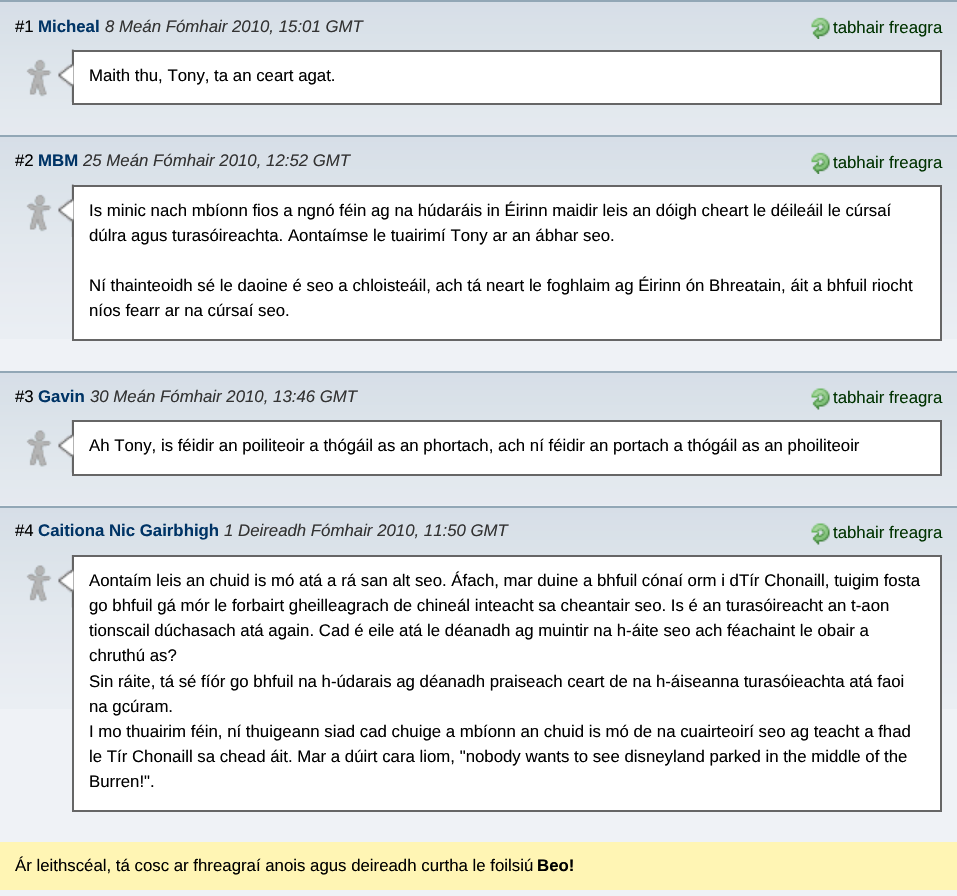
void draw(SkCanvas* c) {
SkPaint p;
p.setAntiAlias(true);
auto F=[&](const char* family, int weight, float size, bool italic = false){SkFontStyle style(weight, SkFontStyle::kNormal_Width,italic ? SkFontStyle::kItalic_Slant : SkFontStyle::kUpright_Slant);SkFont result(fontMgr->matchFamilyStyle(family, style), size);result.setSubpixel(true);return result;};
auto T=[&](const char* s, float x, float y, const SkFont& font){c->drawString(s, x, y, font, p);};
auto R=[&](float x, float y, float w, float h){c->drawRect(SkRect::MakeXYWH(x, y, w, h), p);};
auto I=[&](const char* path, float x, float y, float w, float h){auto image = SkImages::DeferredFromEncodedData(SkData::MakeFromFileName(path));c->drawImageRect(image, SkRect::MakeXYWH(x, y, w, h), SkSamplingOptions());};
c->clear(0xffeff2f6);
I("1.png",0,2,957,133);
p.setColor(0xff92a7b6);
R(0,0,957,2);
auto f1 = F("Liberation Sans",400,16.8);
p.setColor(0xff000000);
T("#1",15,32,f1);
auto f2 = F("Liberation Sans",700,16.8);
p.setColor(0xff003466);
T("Micheal",38,32,f2);
auto f3 = F("Liberation Sans",400,16.8,true);
p.setColor(0xff333333);
T("8 Meán Fómhair 2010, 15:01 GMT",105,32,f3);
I("2.png",811,17,19,22);
p.setColor(0xff003300);
T("tabhair freagra",833,33,f1);
p.setColor(0xffffffff);
c->drawRect(SkRect::MakeXYWH(73,51,868,53),p);
p.setStroke(true);
p.setStrokeWidth(2);
p.setColor(0xff666666);
c->drawRect(SkRect::MakeXYWH(73,51,868,53),p);
I("3.png",26,49,48,53);
p.setStroke(false);
p.setColor(0xff000000);
T("Maith thu, Tony, ta an ceart agat.",89,81,f1);
I("4.png",0,137,957,202);
p.setColor(0xff92a7b6);
R(0,135,957,2);
p.setColor(0xff000000);
T("#2",15,166,f1);
p.setColor(0xff003466);
T("MBM",38,166,f2);
p.setColor(0xff333333);
T("25 Meán Fómhair 2010, 12:52 GMT",83,166,f3);
I("2.png",811,152,19,22);
p.setColor(0xff003300);
T("tabhair freagra",833,168,f1);
p.setColor(0xffffffff);
c->drawRect(SkRect::MakeXYWH(73,186,868,154),p);
p.setStroke(true);
p.setColor(0xff666666);
c->drawRect(SkRect::MakeXYWH(73,186,868,154),p);
I("3.png",26,184,48,53);
p.setStroke(false);
p.setColor(0xff000000);
T("Is minic nach mbíonn fios a ngnó féin ag na húdaráis in Éirinn maidir leis an dóigh cheart le déileáil le cúrsaí",89,216,f1);
T("dúlra agus turasóireachta. Aontaímse le tuairimí Tony ar an ábhar seo.",89,241,f1);
T("Ní thainteoidh sé le daoine é seo a chloisteáil, ach tá neart le foghlaim ag Éirinn ón Bhreatain, áit a bhfuil riocht",89,291,f1);
T("níos fearr ar na cúrsaí seo.",89,316,f1);
I("5.png",0,373,957,133);
p.setColor(0xff92a7b6);
R(0,371,957,2);
p.setColor(0xff000000);
T("#3",15,402,f1);
p.setColor(0xff003466);
T("Gavin",38,402,f2);
p.setColor(0xff333333);
T("30 Meán Fómhair 2010, 13:46 GMT",90,402,f3);
I("6.png",811,388,19,22);
p.setColor(0xff003300);
T("tabhair freagra",833,403,f1);
p.setColor(0xffffffff);
c->drawRect(SkRect::MakeXYWH(73,421,868,54),p);
p.setStroke(true);
p.setColor(0xff666666);
c->drawRect(SkRect::MakeXYWH(73,421,868,54),p);
I("7.png",26,420,48,53);
p.setStroke(false);
p.setColor(0xff000000);
T("Ah Tony, is féidir an poiliteoir a thógáil as an phortach, ach ní féidir an portach a thógáil as an phoiliteoir",89,451,f1);
I("8.png",0,508,957,201);
p.setColor(0xff92a7b6);
R(0,506,957,2);
p.setColor(0xff000000);
T("#4",15,536,f1);
p.setColor(0xff003466);
T("Caitiona Nic Gairbhigh",38,536,f2);
p.setColor(0xff333333);
T("1 Deireadh Fómhair 2010, 11:50 GMT",224,536,f3);
I("6.png",811,523,19,22);
p.setColor(0xff003300);
T("tabhair freagra",833,538,f1);
p.setColor(0xffffffff);
c->drawRect(SkRect::MakeXYWH(73,556,868,255),p);
p.setStroke(true);
p.setColor(0xff666666);
c->drawRect(SkRect::MakeXYWH(73,556,868,255),p);
I("7.png",26,555,48,53);
p.setStroke(false);
p.setColor(0xff000000);
T("Aontaím leis an chuid is mó atá a rá san alt seo. Áfach, mar duine a bhfuil cónaí orm i dTír Chonaill, tuigim fosta",89,586,f1);
T("go bhfuil gá mór le forbairt gheilleagrach de chineál inteacht sa cheantair seo. Is é an turasóireacht an t-aon",89,611,f1);
T("tionscail dúchasach atá again. Cad é eile atá le déanadh ag muintir na h-áite seo ach féachaint le obair a",89,636,f1);
T("chruthú as?",89,661,f1);
T("Sin ráite, tá sé fíór go bhfuil na h-údarais ag déanadh praiseach ceart de na h-áiseanna turasóieachta atá faoi",89,687,f1);
T("na gcúram.",89,712,f1);
T("I mo thuairim féin, ní thuigeann siad cad chuige a mbíonn an chuid is mó de na cuairteoirí seo ag teacht a fhad",89,737,f1);
T("le Tír Chonaill sa chead áit. Mar a dúirt cara liom, \"nobody wants to see disneyland parked in the middle of the",89,762,f1);
T("Burren!\".",89,787,f1);
p.setColor(0xfffff5b4);
R(0,842,957,48);
p.setColor(0xff000000);
T("Ár leithscéal, tá cosc ar fhreagraí anois agus deireadh curtha le foilsiú",15,871,f1);
T("Beo!",537,871,f2);
}
